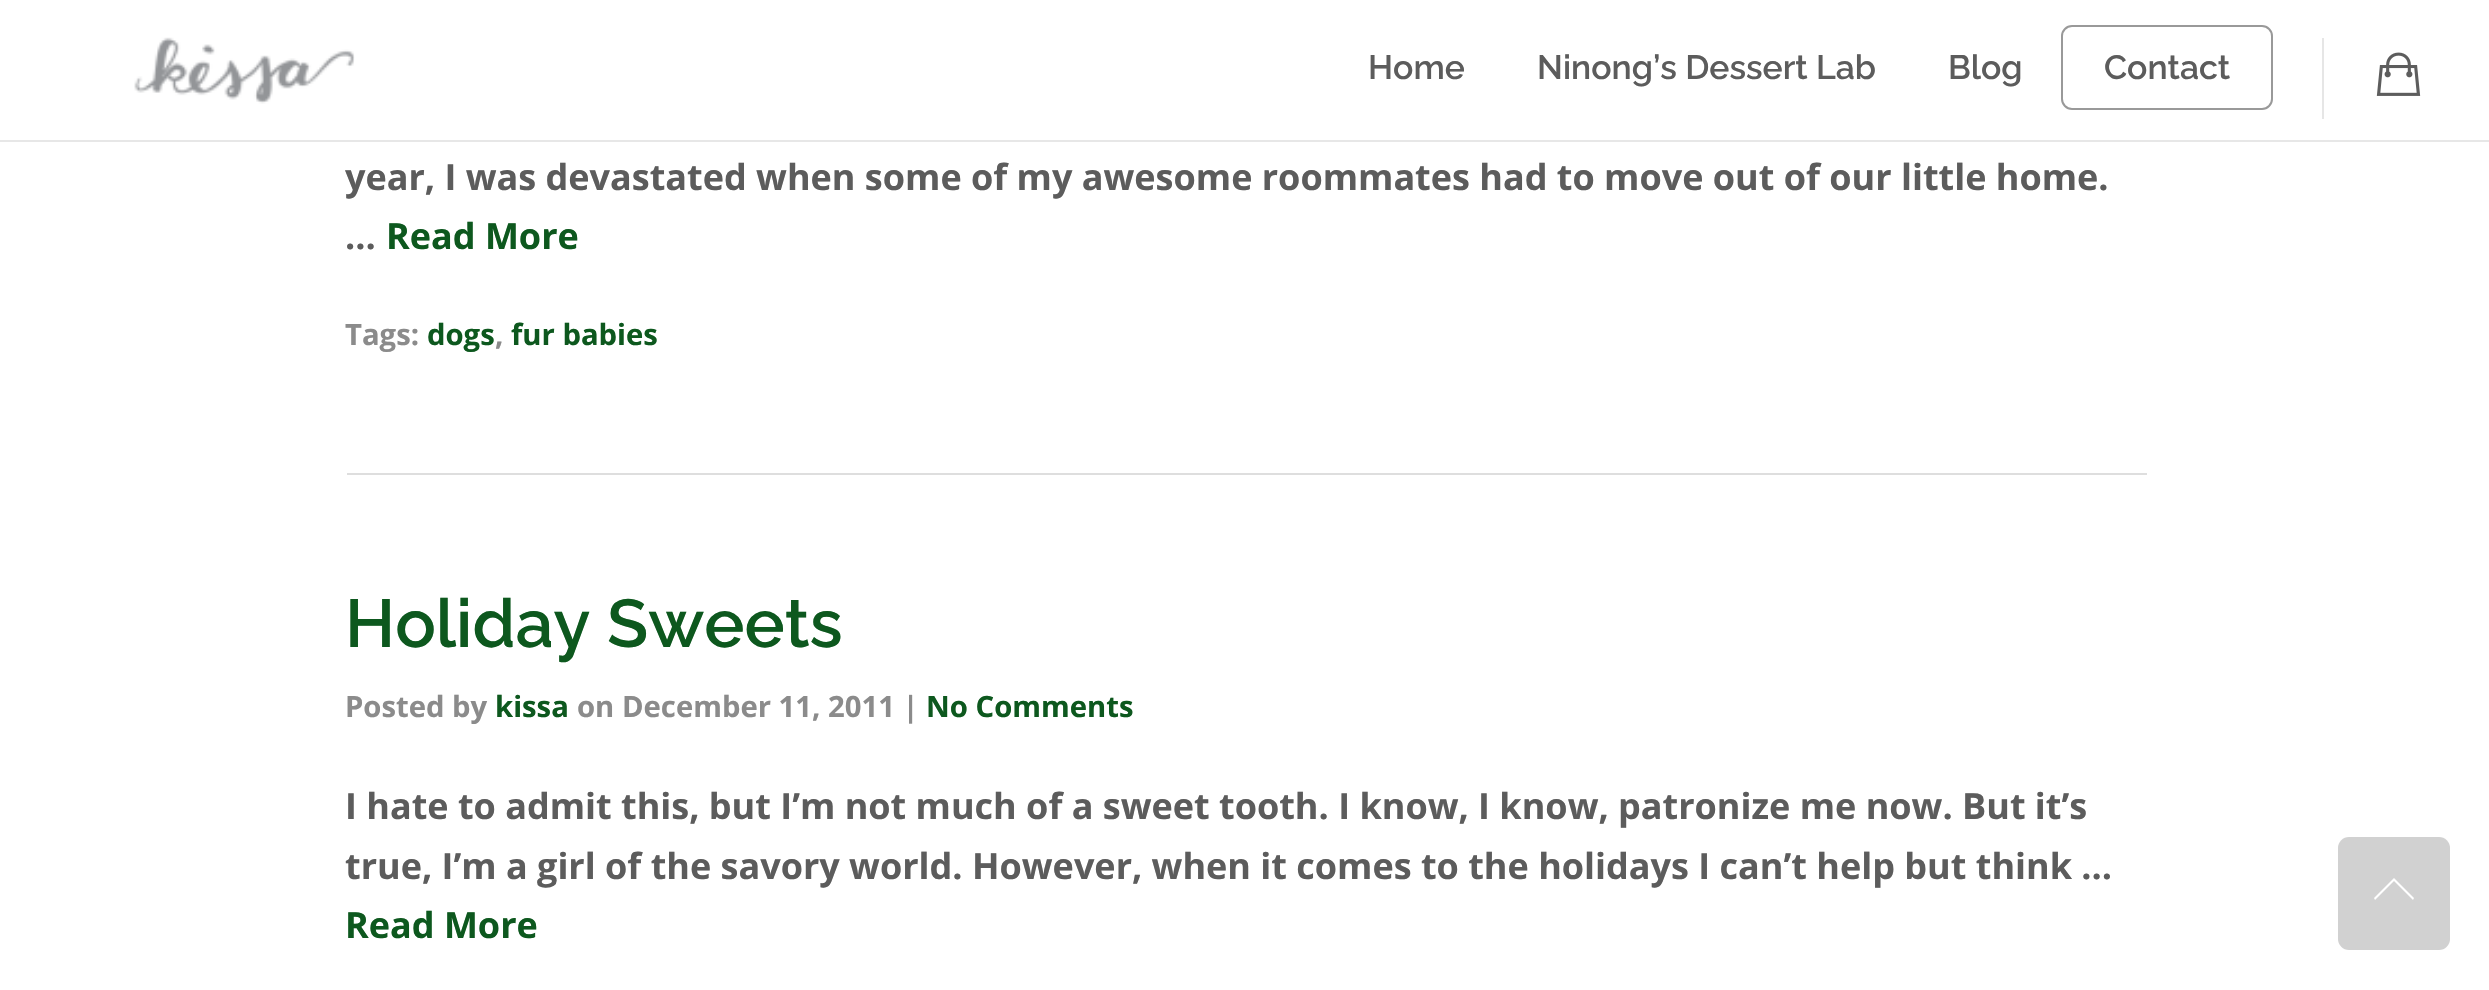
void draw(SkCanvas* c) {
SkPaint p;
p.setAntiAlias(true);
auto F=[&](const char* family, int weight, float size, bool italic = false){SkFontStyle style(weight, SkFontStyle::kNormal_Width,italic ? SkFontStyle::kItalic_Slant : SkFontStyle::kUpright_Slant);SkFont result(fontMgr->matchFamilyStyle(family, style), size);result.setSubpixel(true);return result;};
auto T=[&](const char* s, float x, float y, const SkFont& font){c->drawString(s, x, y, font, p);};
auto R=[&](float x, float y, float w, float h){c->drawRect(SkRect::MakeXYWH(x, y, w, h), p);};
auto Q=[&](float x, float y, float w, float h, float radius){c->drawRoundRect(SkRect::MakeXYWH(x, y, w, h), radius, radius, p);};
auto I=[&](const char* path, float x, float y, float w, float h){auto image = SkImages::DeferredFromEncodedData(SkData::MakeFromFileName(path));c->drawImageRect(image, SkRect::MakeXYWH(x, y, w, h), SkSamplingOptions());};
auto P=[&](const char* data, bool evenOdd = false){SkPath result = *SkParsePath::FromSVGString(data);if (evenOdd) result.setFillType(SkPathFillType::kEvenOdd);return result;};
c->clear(0xffffffff);
p.setColor(0xffe7e7e7);
R(0,140,2489,2);
I("1.png",134,37,221,67);
auto f1 = F("Raleway",600,33.75);
p.setColor(0xff5c5c5c);
T("Home",1368,79,f1);
T("Ninong’s Dessert Lab",1537,79,f1);
T("Blog",1948,79,f1);
p.setStroke(true);
p.setStrokeWidth(2);
p.setColor(0xff999999);
c->drawRoundRect(SkRect::MakeXYWH(2062,26,210,83),10,10,p);
p.setStroke(false);
p.setColor(0xff5c5c5c);
T("Contact",2104,79,f1);
p.setColor(0xffe6e6e6);
R(2322,38,2,81);
I("2.png",2376,52,45,44);
p.setColor(0xffdedede);
R(347,473,1800,2);
auto f2 = F("Open Sans",700,36);
p.setColor(0xff5c5c5c);
T("year, I was devastated when some of my awesome roommates had to move out of our little home.",345,190,f2);
T("…",345,249,f2);
p.setColor(0xff0d581e);
T("Read More",386,249,f2);
auto f3 = F("Open Sans",700,29.25);
p.setColor(0xff8b8b8b);
T("Tags:",345,345,f3);
p.setColor(0xff0d581e);
T("dogs",427,345,f3);
p.setColor(0xff8b8b8b);
T(",",495,345,f3);
p.setColor(0xff0d581e);
T("fur babies",511,345,f3);
auto f4 = F("Raleway",600,67.5);
T("Holiday Sweets",345,647,f4);
p.setColor(0xff8b8b8b);
T("Posted by",345,717,f3);
p.setColor(0xff0d581e);
T("kissa",495,717,f3);
p.setColor(0xff8b8b8b);
T("on December 11, 2011 |",577,717,f3);
p.setColor(0xff0d581e);
T("No Comments",926,717,f3);
p.setColor(0xff5c5c5c);
T("I hate to admit this, but I’m not much of a sweet tooth. I know, I know, patronize me now. But it’s",345,819,f2);
T("true, I’m a girl of the savory world. However, when it comes to the holidays I can’t help but think …",345,879,f2);
p.setColor(0xff0d581e);
T("Read More",345,938,f2);
p.setColor(0xffd1d1d1);
Q(2338,837,112,113,11);
p.setColor(0xffffffff);
c->drawPath(P("M2375 900l19-19l19 19l1-2l-20-20l-20 20z"),p);
}
